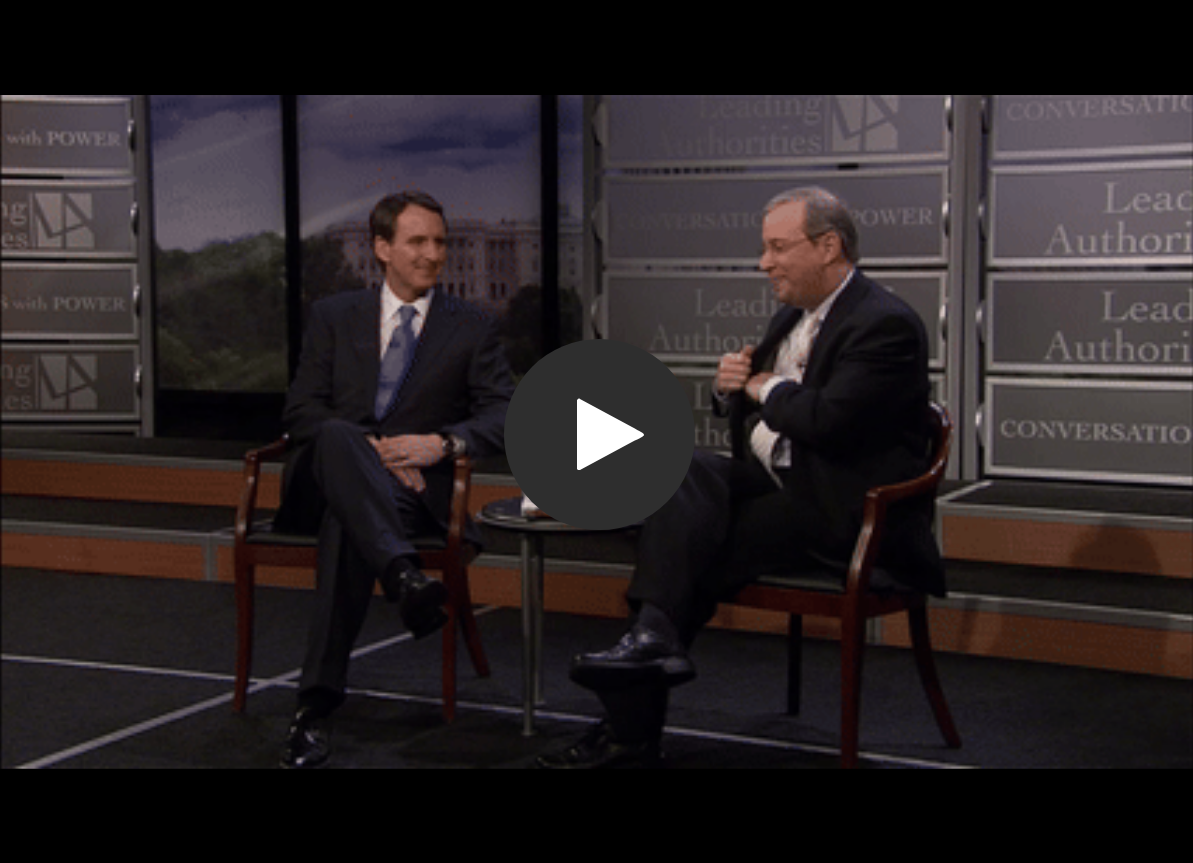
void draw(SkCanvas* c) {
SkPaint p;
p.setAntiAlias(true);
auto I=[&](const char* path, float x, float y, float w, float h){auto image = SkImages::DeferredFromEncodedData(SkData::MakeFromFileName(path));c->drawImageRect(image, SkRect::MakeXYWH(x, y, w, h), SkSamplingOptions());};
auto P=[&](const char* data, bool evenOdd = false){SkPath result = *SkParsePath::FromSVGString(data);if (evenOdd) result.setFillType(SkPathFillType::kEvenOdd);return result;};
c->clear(0xff000000);
I("1.png",0,95,1193,674);
p.setColor(0xff2e2e2e);
c->drawCircle(599.5,434.5,95.5,p);
p.setColor(0xffffffff);
c->drawPath(P("M580 399l52 28c16 9 16 7 0 15l-52 28h-2l-1-1v-69c1-1 2-2 3-1z"),p);
}
